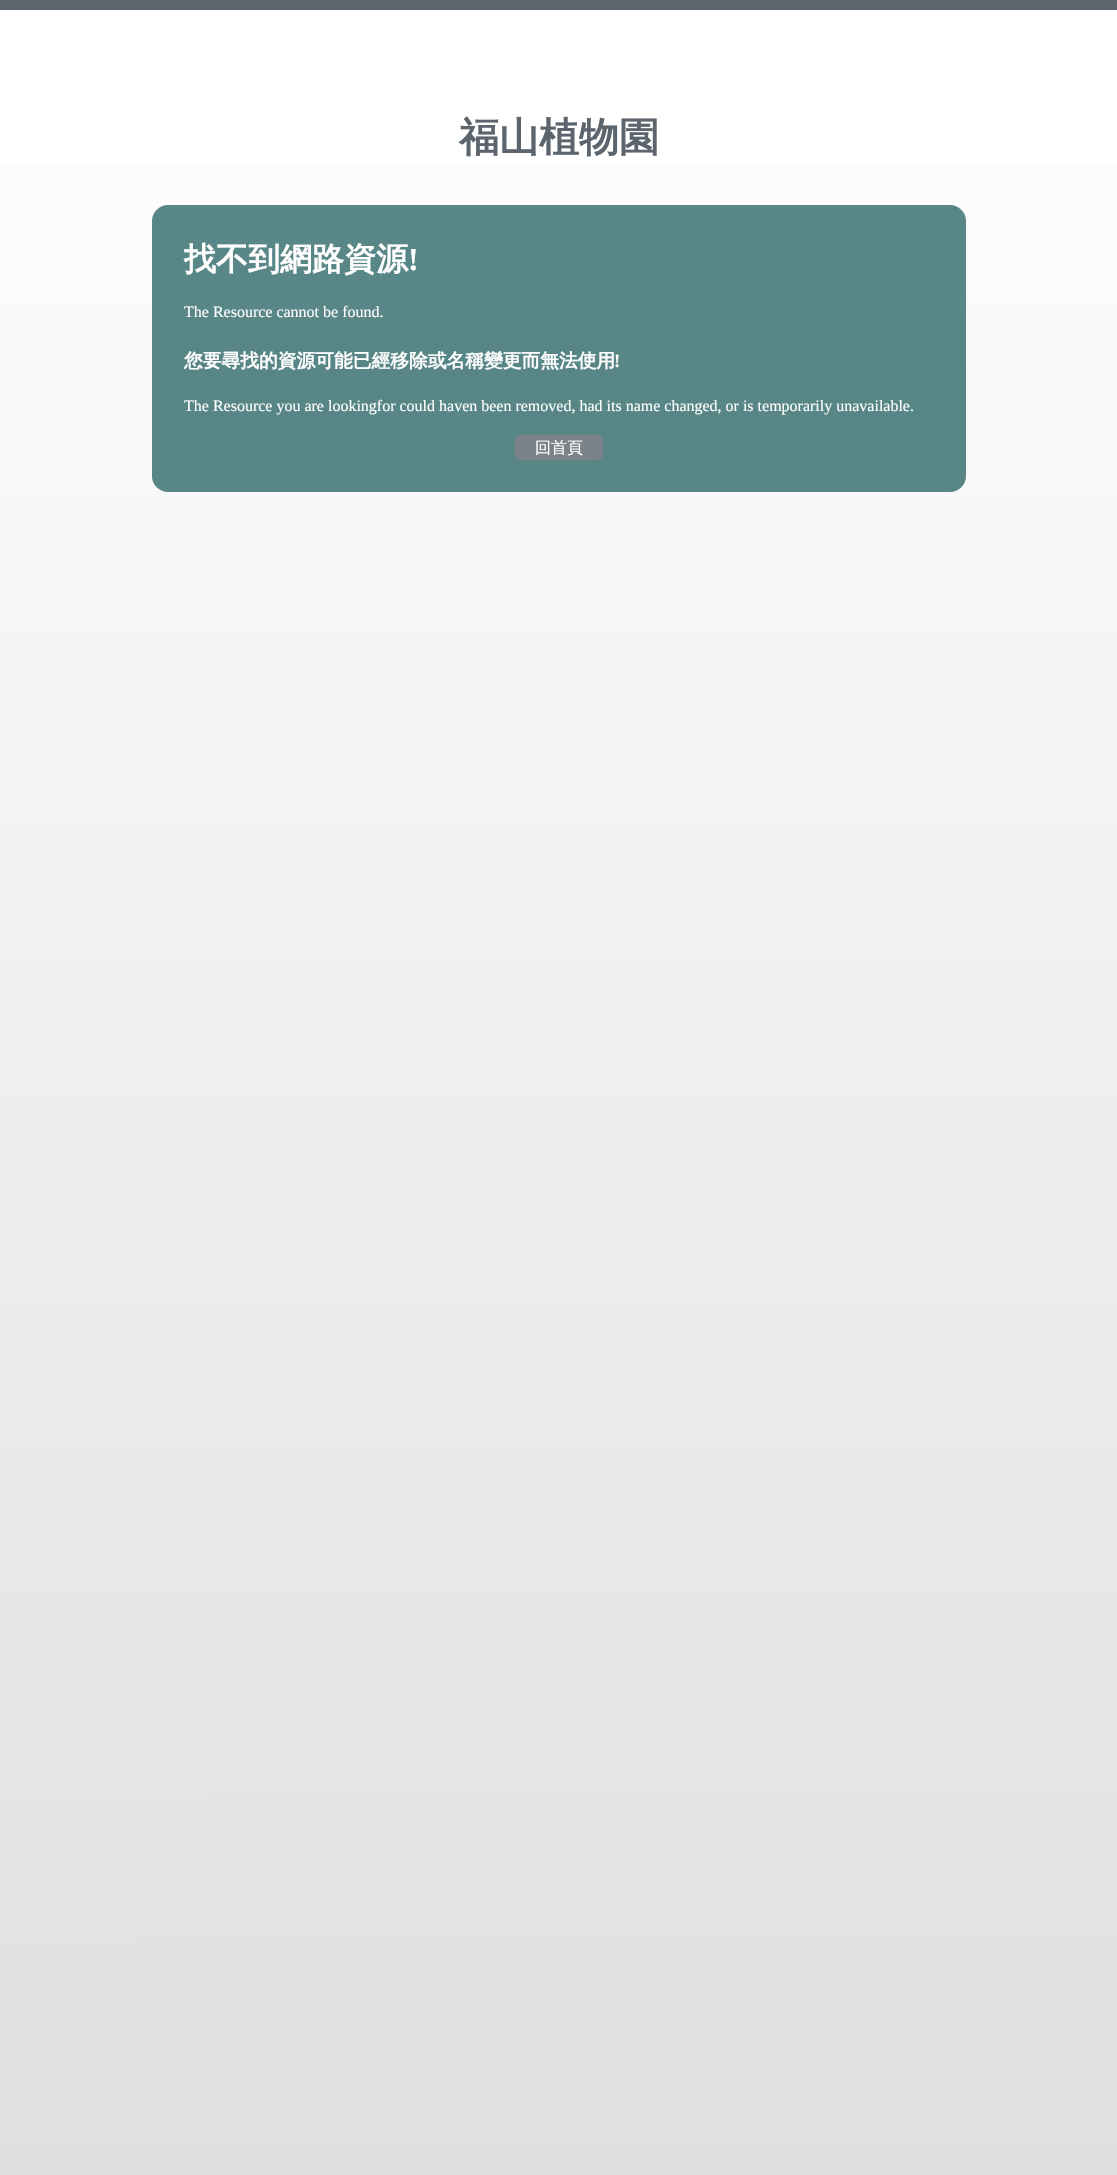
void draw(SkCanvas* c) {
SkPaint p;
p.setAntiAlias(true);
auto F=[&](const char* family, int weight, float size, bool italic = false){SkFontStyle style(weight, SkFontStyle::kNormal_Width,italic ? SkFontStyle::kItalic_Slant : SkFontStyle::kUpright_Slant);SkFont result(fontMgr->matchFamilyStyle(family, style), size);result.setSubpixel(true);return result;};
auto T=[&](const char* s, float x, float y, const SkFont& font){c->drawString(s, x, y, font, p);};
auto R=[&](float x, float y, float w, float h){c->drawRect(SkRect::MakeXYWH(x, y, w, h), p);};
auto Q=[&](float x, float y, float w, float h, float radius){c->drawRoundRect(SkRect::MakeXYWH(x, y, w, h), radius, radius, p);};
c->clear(0xffffffff);
{
const SkColor colors[] = {0xffffffff,0xffe0dede};
const float stops[] = {0,1};
const SkPoint ends[] = {{558,0}, {559,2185}};
p.setShader(SkGradientShader::MakeLinear(ends, colors, stops, 2, SkTileMode::kClamp));
p.setAlpha(255);
}
R(0,165,1117,2010);
p.setShader(nullptr);
p.setColor(0xff5c656d);
R(0,0,1117,10);
auto f1 = F("WenQuanYi Zen Hei",700,40);
T("福山植物園",459,151,f1);
p.setColor(0xcc2f696a);
Q(152,205,814,287,16);
auto f2 = F("WenQuanYi Zen Hei",700,32);
p.setColor(0xfffefefe);
T("找不到網路資源",184,270,f2);
auto f3 = F("Liberation Serif",700,32);
T("!",408,270,f3);
auto f4 = F("Liberation Serif",400,16);
T("The Resource cannot be found.",184,317,f4);
auto f5 = F("WenQuanYi Zen Hei",700,18.75);
T("您要尋找的資源可能已經移除或名稱變更而無法使用",184,367,f5);
auto f6 = F("Liberation Serif",700,18.75);
T("!",614,367,f6);
T("The Resource you are lookingfor could haven been removed, had its name changed, or is temporarily unavailable.",184,411,f4);
p.setColor(0xff7b8289);
Q(515,435,88,25,6);
auto f7 = F("WenQuanYi Zen Hei",500,16);
p.setColor(0xfffefefe);
T("回首頁",535,453,f7);
}
